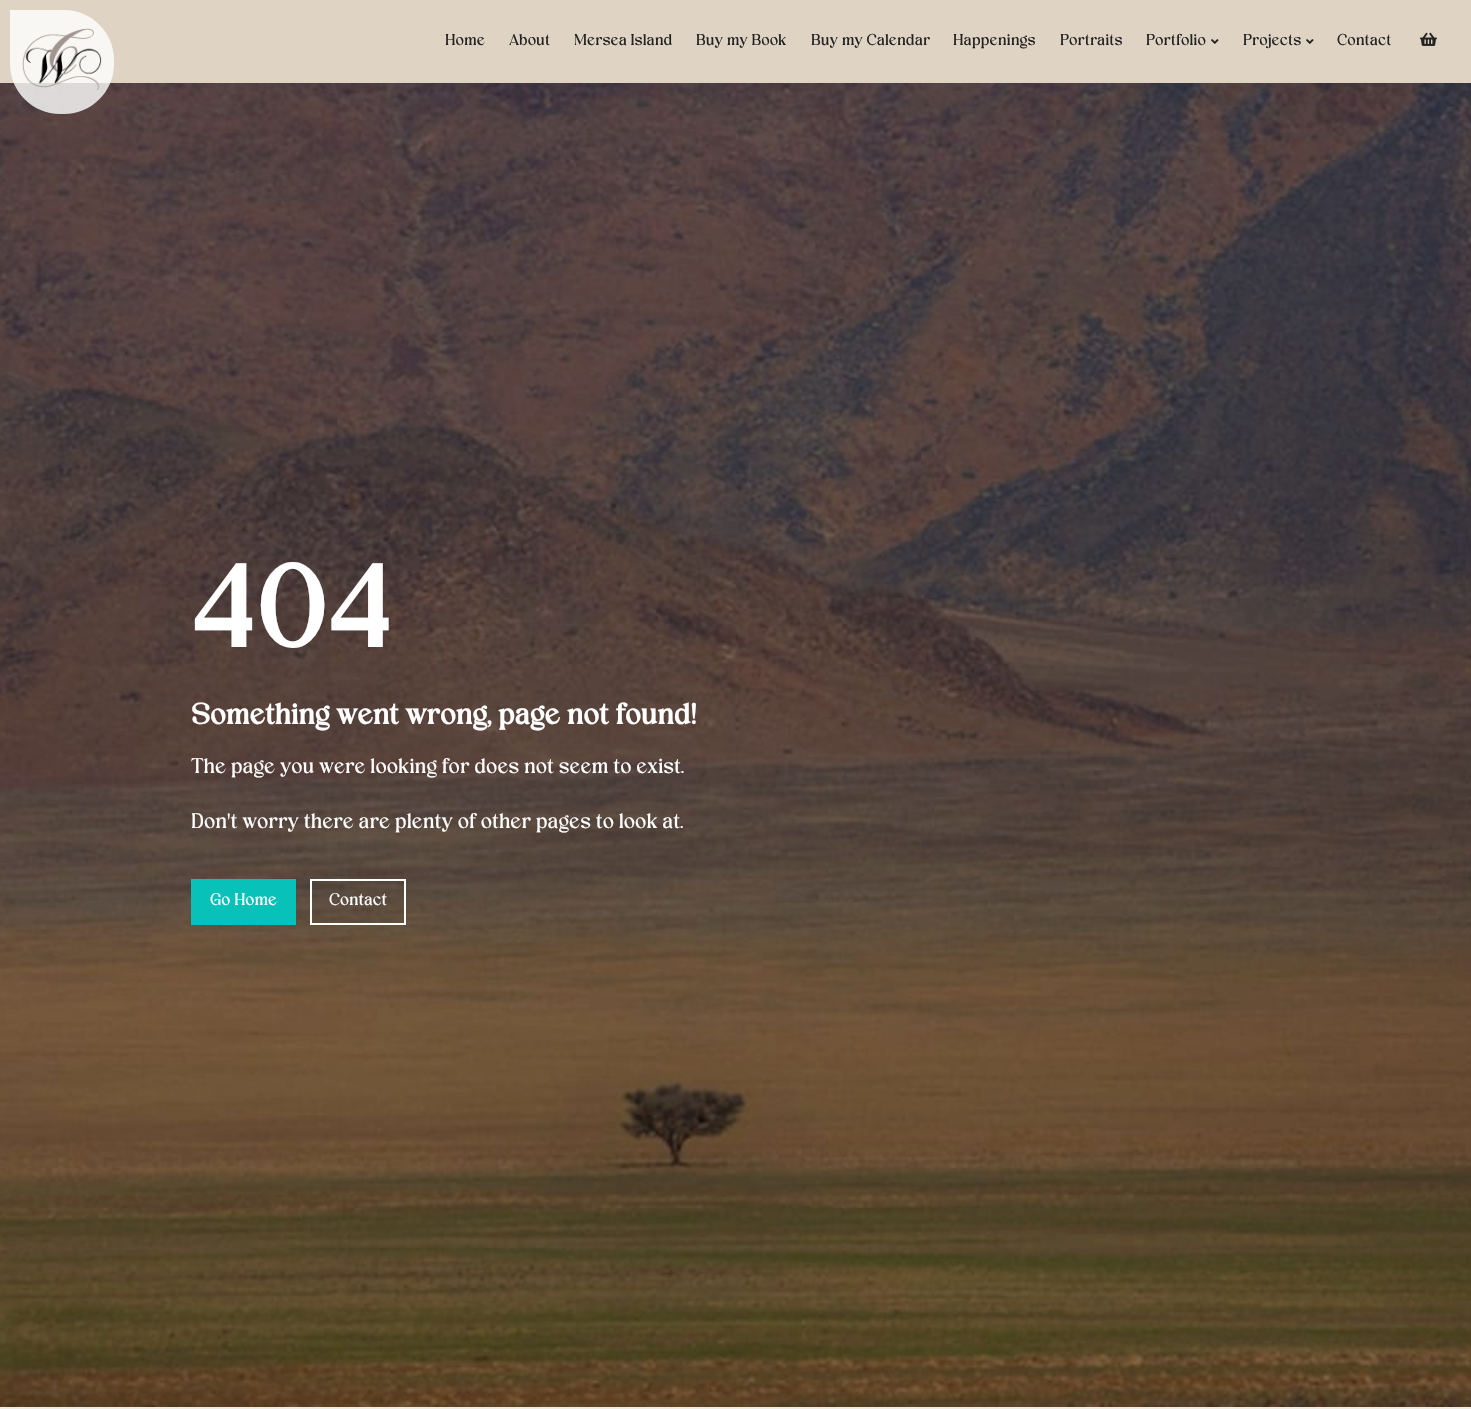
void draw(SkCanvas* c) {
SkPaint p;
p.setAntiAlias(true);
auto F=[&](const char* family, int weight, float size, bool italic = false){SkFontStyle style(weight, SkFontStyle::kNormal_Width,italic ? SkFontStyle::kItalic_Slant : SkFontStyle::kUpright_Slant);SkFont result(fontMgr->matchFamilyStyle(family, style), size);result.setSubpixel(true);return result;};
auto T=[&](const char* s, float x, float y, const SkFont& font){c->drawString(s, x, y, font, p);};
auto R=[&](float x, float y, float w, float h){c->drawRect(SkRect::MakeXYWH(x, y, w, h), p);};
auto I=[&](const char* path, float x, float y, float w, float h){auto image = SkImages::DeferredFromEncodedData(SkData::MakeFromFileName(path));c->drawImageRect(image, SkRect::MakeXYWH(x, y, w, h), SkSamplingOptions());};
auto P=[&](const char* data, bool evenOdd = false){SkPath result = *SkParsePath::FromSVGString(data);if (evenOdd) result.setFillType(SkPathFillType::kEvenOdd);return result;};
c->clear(0xfff0ece2);
p.setColor(0xffdfd3c3);
R(0,0,1471,83);
I("4.png",0,83,1471,1324);
p.setColor(0xccffffff);
c->drawPath(P("M10 10h54c27.5 0 50 22.5 50 50v4c0 27.5-22.5 50-50 50h-4c-27.5 0-50-22.5-50-50z"),p);
I("1.png",22,28,80,63);
auto f1 = F("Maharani",400,15);
p.setColor(0xff222222);
T("Home",445,45,f1);
T("About",509,45,f1);
T("Mersea Island",574,45,f1);
T("Buy my Book",696,45,f1);
T("Buy my Calendar",811,45,f1);
T("Happenings",953,45,f1);
T("Portraits",1060,45,f1);
T("Portfolio",1146,45,f1);
I("2.png",1211,39,8,5);
T("Projects",1243,45,f1);
I("2.png",1306,39,8,5);
T("Contact",1337,45,f1);
I("3.png",1420,32,17,14);
auto f2 = F("Maharani",700,110);
p.setColor(0xffffffff);
T("404",191,647,f2);
auto f3 = F("Maharani",700,28);
T("Something went wrong, page not found!",191,724,f3);
auto f4 = F("Maharani",400,20);
T("The page you were looking for does not seem to exist.",191,773,f4);
T("Don't worry there are plenty of other pages to look at.",191,828,f4);
p.setColor(0xff08c1b8);
R(191,879,105,46);
auto f5 = F("Maharani",400,16);
p.setColor(0xffffffff);
T("Go Home",210,905,f5);
p.setStroke(true);
p.setStrokeWidth(2);
c->drawRect(SkRect::MakeXYWH(311,880,94,44),p);
p.setStroke(false);
T("Contact",329,905,f5);
}
